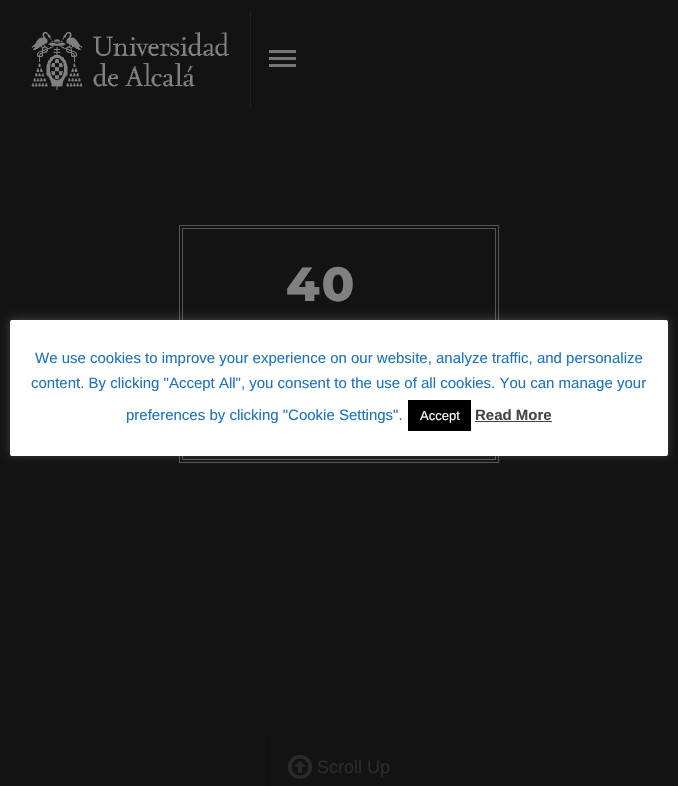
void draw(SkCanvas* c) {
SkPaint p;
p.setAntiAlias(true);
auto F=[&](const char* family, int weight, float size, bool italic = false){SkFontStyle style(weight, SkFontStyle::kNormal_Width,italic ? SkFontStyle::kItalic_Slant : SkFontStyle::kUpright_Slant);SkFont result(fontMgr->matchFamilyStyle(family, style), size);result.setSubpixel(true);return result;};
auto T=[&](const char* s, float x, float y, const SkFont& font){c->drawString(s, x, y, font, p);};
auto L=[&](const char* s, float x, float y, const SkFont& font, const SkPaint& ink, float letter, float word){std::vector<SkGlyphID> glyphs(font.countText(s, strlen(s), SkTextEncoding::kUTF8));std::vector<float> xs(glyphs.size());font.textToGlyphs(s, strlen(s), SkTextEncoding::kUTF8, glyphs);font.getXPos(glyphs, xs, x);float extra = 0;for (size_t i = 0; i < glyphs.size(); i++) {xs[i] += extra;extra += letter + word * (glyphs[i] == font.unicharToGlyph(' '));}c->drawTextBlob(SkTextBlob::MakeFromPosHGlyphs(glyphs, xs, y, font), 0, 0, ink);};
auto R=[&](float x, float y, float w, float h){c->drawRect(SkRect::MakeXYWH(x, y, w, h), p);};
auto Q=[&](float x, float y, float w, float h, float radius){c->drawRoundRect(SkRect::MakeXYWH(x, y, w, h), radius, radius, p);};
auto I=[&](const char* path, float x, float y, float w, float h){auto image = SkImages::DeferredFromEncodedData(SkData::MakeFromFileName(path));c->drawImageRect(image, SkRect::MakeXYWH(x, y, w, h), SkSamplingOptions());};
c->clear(0xff131313);
I("1.png",31,32,198,58);
p.setColor(0xff1f1f1f);
R(250,10,1,97);
p.setColor(0xff757575);
R(269,57,27,3);
R(269,50,27,3);
R(269,64,27,3);
p.setStroke(true);
p.setStrokeWidth(1);
p.setColor(0xff555555);
c->drawRect(SkRect::MakeXYWH(179.5,225.5,319,237),p);
c->drawRect(SkRect::MakeXYWH(182.5,228.5,313,231),p);
auto f1 = F("Montserrat",800,48);
p.setStroke(false);
p.setColor(0xff808080);
L("40",286,301,f1,p,2,0);
p.setColor(0xff101010);
R(410,737,1,49);
R(267,737,1,49);
I("2.png",288,755,24,24);
auto f2 = F("Liberation Sans",400,18);
p.setColor(0xff2b2b2b);
T("Scroll Up",317,773,f2);
p.setColor(0x4dacabab);
p.setMaskFilter(SkMaskFilter::MakeBlur(kNormal_SkBlurStyle, 5));
c->drawRoundRect(SkRect::MakeXYWH(10,319,658,136),2,2,p);
p.setMaskFilter(nullptr);
p.setColor(0xffffffff);
Q(10,320,658,136,2);
auto f3 = F("Liberation Sans",400,15);
p.setColor(0xff1e73be);
T("We use cookies to improve your experience on our website, analyze traffic, and personalize",35,363,f3);
T("content. By clicking \"Accept All\", you consent to the use of all cookies. You can manage your",31,388,f3);
T("preferences by clicking \"Cookie Settings\".",126,420,f3);
p.setColor(0xff000000);
R(408,400,63,31);
auto f4 = F("Liberation Sans",400,13);
p.setColor(0xffffffff);
T("Accept",420,420,f4);
auto f5 = F("Liberation Sans",700,15);
p.setColor(0xff444444);
T("Read More",475,420,f5);
R(475,421,77,1);
}
